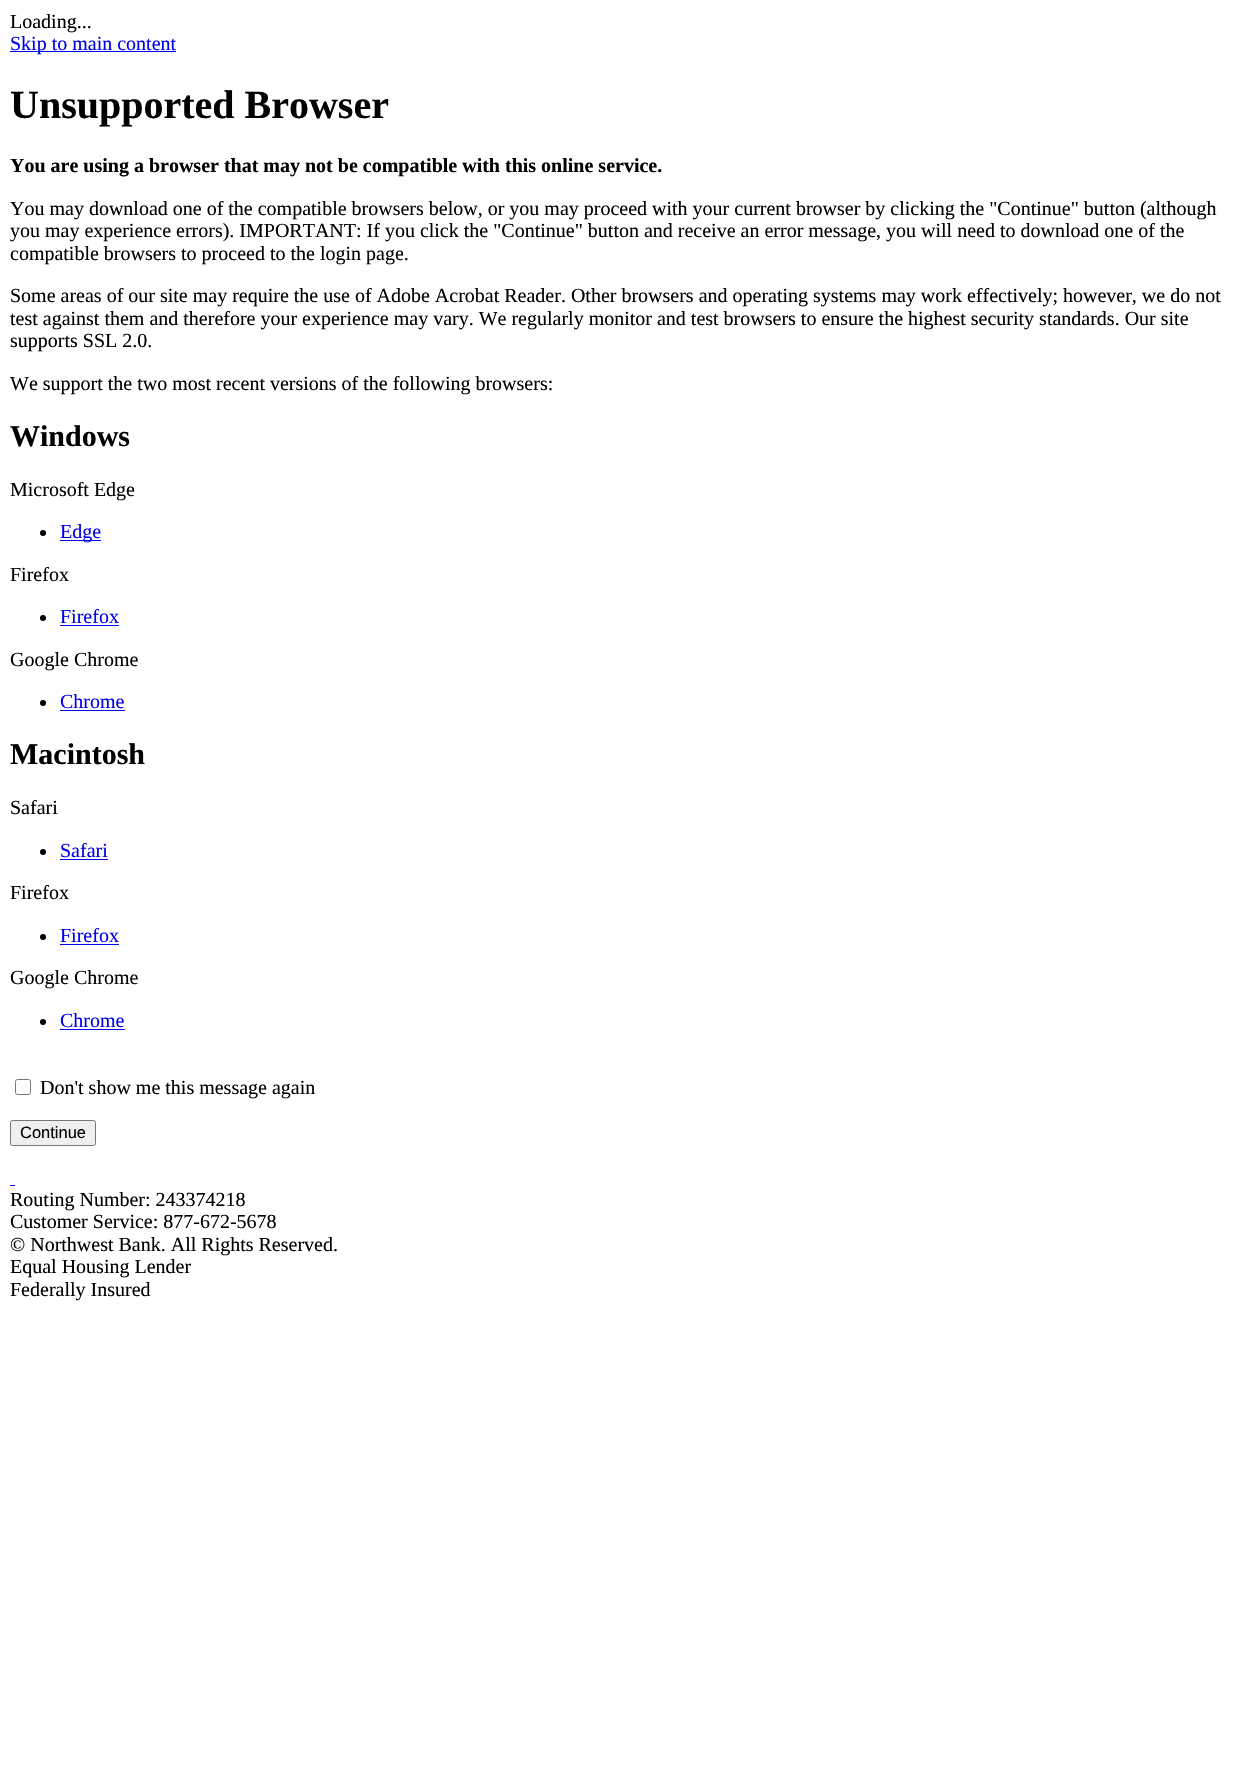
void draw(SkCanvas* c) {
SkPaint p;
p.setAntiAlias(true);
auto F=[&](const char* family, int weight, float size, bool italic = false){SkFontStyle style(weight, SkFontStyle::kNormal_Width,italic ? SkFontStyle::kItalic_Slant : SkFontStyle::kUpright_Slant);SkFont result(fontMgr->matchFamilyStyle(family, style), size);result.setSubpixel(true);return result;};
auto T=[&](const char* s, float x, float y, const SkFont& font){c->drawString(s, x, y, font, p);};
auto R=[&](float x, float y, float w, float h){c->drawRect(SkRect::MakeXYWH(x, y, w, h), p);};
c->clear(0xffffffff);
auto f1 = F("Liberation Serif",400,20);
p.setColor(0xff000000);
T("Loading...",10,28,f1);
p.setColor(0xff0000ee);
R(10,51,166,1);
T("Skip to main content",10,50,f1);
auto f2 = F("Liberation Serif",700,40);
p.setColor(0xff000000);
T("Unsupported Browser",10,118,f2);
auto f3 = F("Liberation Serif",700,20);
T("You are using a browser that may not be compatible with this online service.",10,172,f3);
T("You may download one of the compatible browsers below, or you may proceed with your current browser by clicking the \"Continue\" button (although",10,215,f1);
T("you may experience errors). IMPORTANT: If you click the \"Continue\" button and receive an error message, you will need to download one of the",10,237,f1);
T("compatible browsers to proceed to the login page.",10,260,f1);
T("Some areas of our site may require the use of Adobe Acrobat Reader. Other browsers and operating systems may work effectively; however, we do not",10,302,f1);
T("test against them and therefore your experience may vary. We regularly monitor and test browsers to ensure the highest security standards. Our site",10,325,f1);
T("supports SSL 2.0.",10,347,f1);
T("We support the two most recent versions of the following browsers:",10,390,f1);
auto f4 = F("Liberation Serif",700,30);
T("Windows",10,446,f4);
T("Microsoft Edge",10,496,f1);
c->drawCircle(43,533,3,p);
p.setColor(0xff0000ee);
R(60,540,41,1);
T("Edge",60,538,f1);
p.setColor(0xff000000);
T("Firefox",10,581,f1);
c->drawCircle(43,618,3,p);
p.setColor(0xff0000ee);
T("Firefox",60,623,f1);
R(60,625,59,1);
p.setColor(0xff000000);
T("Google Chrome",10,666,f1);
c->drawCircle(43,703,3,p);
p.setColor(0xff0000ee);
T("Chrome",60,708,f1);
R(60,710,65,1);
p.setColor(0xff000000);
T("Macintosh",10,764,f4);
T("Safari",10,814,f1);
c->drawCircle(43,852,3,p);
p.setColor(0xff0000ee);
T("Safari",60,857,f1);
R(60,859,48,1);
p.setColor(0xff000000);
T("Firefox",10,899,f1);
c->drawCircle(43,937,3,p);
p.setColor(0xff0000ee);
T("Firefox",60,942,f1);
R(60,944,59,1);
p.setColor(0xff000000);
T("Google Chrome",10,984,f1);
c->drawCircle(43,1022,3,p);
p.setColor(0xff0000ee);
T("Chrome",60,1027,f1);
R(60,1029,65,1);
p.setStroke(true);
p.setStrokeWidth(1);
p.setColor(0xff767676);
c->drawRoundRect(SkRect::MakeXYWH(15.5,1079.5,15,15),2,2,p);
p.setStroke(false);
p.setColor(0xff000000);
T("Don't show me this message again",40,1094,f1);
p.setColor(0xffefefef);
c->drawRoundRect(SkRect::MakeXYWH(10.5,1120.5,85,25),2,2,p);
p.setStroke(true);
p.setColor(0xff767676);
c->drawRoundRect(SkRect::MakeXYWH(10.5,1120.5,85,25),2,2,p);
auto f5 = F("Liberation Sans",400,16.5);
p.setStroke(false);
p.setColor(0xff000000);
T("Continue",20,1138,f5);
p.setColor(0xff0000ee);
R(10,1185,5,1);
p.setColor(0xff000000);
T("Routing Number: 243374218",10,1206,f1);
T("Customer Service: 877-672-5678",10,1228,f1);
T("© Northwest Bank. All Rights Reserved.",10,1251,f1);
T("Equal Housing Lender",10,1273,f1);
T("Federally Insured",10,1296,f1);
}
